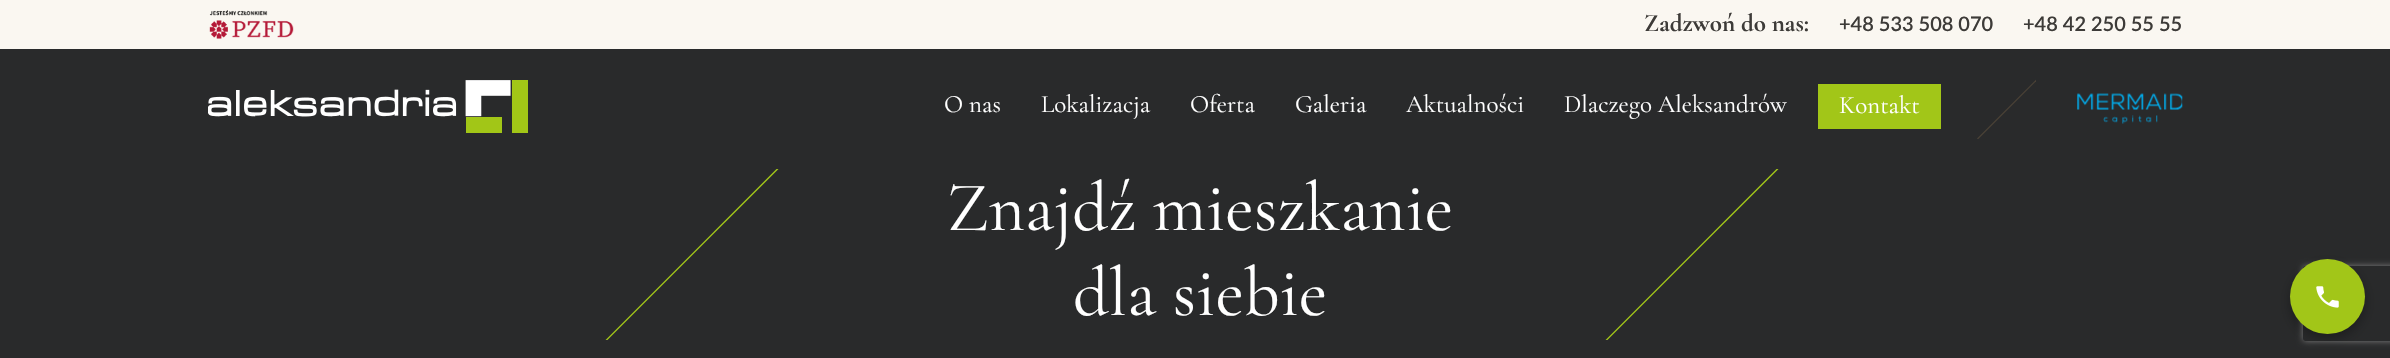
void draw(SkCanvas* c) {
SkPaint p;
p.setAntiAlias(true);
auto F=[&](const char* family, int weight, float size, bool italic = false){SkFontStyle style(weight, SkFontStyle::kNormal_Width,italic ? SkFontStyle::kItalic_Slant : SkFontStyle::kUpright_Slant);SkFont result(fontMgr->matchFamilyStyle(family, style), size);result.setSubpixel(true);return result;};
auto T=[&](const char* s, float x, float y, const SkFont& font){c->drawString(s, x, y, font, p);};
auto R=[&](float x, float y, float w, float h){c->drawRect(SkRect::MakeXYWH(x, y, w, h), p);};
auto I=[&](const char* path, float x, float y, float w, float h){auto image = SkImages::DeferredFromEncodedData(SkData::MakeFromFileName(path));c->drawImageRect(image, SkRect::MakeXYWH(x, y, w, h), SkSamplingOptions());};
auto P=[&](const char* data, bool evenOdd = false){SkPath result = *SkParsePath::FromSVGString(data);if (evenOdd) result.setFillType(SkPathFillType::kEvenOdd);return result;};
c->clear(0xff292a2b);
p.setColor(0xfffaf7f1);
R(0,0,2390,49);
I("1.png",209,10,85,29);
auto f1 = F("Cormorant Garamond",700,25);
p.setColor(0xff3d3b38);
T("Zadzwoń do nas:",1644,31,f1);
auto f2 = F("Lato",600,20);
T("+48 533 508 070",1839,31,f2);
T("+48 42 250 55 55",2023,31,f2);
c->save();
c->clipRect(SkRect::MakeXYWH(605,160,180,180));
p.setStroke(true);
p.setStrokeWidth(1.3);
p.setColor(0xffa2c618);
c->drawPath(P("M786 160.5l-180.5 180.5"),p);
c->restore();
c->save();
c->clipRect(SkRect::MakeXYWH(1605,160,180,180));
c->drawPath(P("M1786 160.5l-180.5 180.5"),p);
c->restore();
p.setStroke(false);
p.setColor(0xff292a2b);
R(776,160,1009,9);
I("2.png",208,80,320,53);
auto f3 = F("Cormorant Garamond",400,25);
p.setColor(0xffffffff);
T("O nas",944,112,f3);
T("Lokalizacja",1041,112,f3);
T("Oferta",1190,112,f3);
T("Galeria",1295,112,f3);
T("Aktualności",1406,112,f3);
T("Dlaczego Aleksandrów",1564,112,f3);
p.setColor(0xffa2c618);
R(1818,84,123,45);
p.setColor(0xffffffff);
T("Kontakt",1839,113,f3);
c->save();
c->clipRect(SkRect::MakeXYWH(1976,79,60,60));
p.setStroke(true);
p.setStrokeWidth(1.2);
p.setColor(0xff4a4135);
c->drawPath(P("M2037.5 79l-60 60"),p);
c->restore();
I("3.png",2077,93,106,31);
auto f4 = F("Cormorant Garamond",400,70);
p.setStroke(false);
p.setColor(0xffffffff);
T("Znajdź mieszkanie",947,230,f4);
T("dla siebie",1073,315,f4);
p.setColor(0x4d000000);
p.setMaskFilter(SkMaskFilter::MakeBlur(kNormal_SkBlurStyle, 6));
c->drawRoundRect(SkRect::MakeXYWH(2290,264,75,75),37.5,37.5,p);
p.setMaskFilter(nullptr);
c->save();
c->clipPath(P("M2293 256h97v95h-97zm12.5 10h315c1.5 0 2.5 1 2.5 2.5v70c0 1.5-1 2.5-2.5 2.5h-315c-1.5 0-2.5-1-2.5-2.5v-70c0-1.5 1-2.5 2.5-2.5z",true),true);
p.setColor(0xff808080);
p.setMaskFilter(SkMaskFilter::MakeBlur(kNormal_SkBlurStyle, 3));
c->drawRoundRect(SkRect::MakeXYWH(2303,266,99,75),2.5,2.5,p);
p.setMaskFilter(nullptr);
c->restore();
p.setColor(0xffa2c618);
c->drawCircle(2327.5,296.5,37.5,p);
I("4.png",2316,286,23,22);
}
